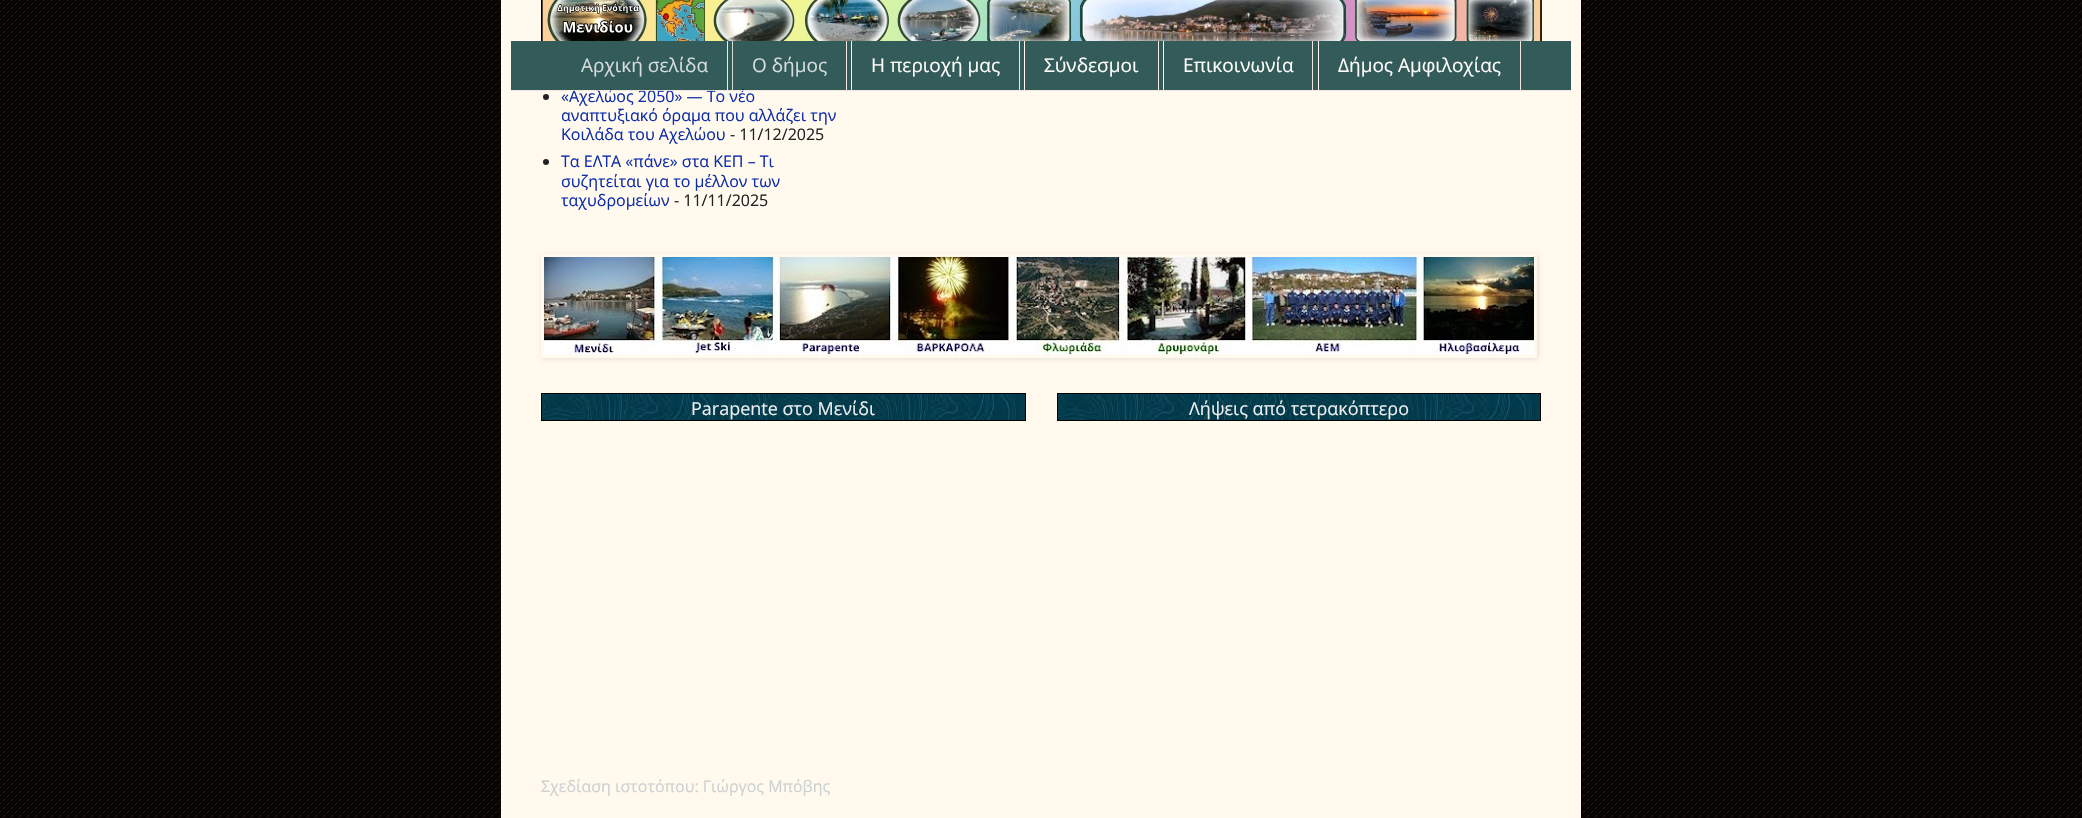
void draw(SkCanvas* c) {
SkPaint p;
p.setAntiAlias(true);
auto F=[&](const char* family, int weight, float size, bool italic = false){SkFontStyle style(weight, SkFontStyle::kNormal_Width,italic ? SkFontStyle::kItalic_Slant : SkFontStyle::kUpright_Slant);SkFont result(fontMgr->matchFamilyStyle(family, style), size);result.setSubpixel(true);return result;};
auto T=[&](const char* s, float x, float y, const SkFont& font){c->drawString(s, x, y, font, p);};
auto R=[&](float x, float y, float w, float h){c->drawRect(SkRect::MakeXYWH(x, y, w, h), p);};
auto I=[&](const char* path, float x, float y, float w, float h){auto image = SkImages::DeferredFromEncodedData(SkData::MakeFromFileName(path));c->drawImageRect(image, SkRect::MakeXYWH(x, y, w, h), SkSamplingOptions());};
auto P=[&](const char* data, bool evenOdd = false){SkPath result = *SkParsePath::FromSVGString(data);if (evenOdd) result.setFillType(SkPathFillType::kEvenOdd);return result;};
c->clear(0xffffffff);
I("1.png",0,0,2082,818);
p.setColor(0xfffff9ee);
R(501,0,1080,818);
I("2.png",541,0,1001,41);
auto f1 = F("Open Sans",400,16);
p.setColor(0xff0e2daa);
T("«Αχελώος 2050» — Το νέο",561,102,f1);
p.setColor(0xcc003333);
R(511,41,1060,49);
p.setColor(0xcceee5dd);
R(511,90,1060,1);
p.setColor(0xfff1e9e0);
R(727,41,1,49);
auto f2 = F("Open Sans",400,19);
p.setColor(0xffd5dddd);
T("Αρχική σελίδα",581,72,f2);
p.setColor(0xfff1e9e0);
R(846,41,1,49);
p.setColor(0xccfff9ee);
R(732,41,1,49);
p.setColor(0xffd5dddd);
T("Ο δήμος",752,72,f2);
p.setColor(0xfff1e9e0);
R(1019,41,1,49);
p.setColor(0xfffff9ee);
R(851,41,1,49);
p.setColor(0xfffffefc);
T("Η περιοχή μας",871,72,f2);
p.setColor(0xfff1e9e0);
R(1158,41,1,49);
p.setColor(0xfffff9ee);
R(1024,41,1,49);
p.setColor(0xfffffefc);
T("Σύνδεσμοι",1044,72,f2);
p.setColor(0xfff1e9e0);
R(1312,41,1,49);
p.setColor(0xfffff9ee);
R(1163,41,1,49);
p.setColor(0xfffffefc);
T("Επικοινωνία",1183,72,f2);
p.setColor(0xfff1e9e0);
R(1520,41,1,49);
p.setColor(0xfffff9ee);
R(1318,41,1,49);
p.setColor(0xfffffefc);
T("Δήμος Αμφιλοχίας",1338,72,f2);
p.setColor(0xff222222);
c->drawCircle(546,97,3,p);
p.setColor(0xff0e2daa);
T("αναπτυξιακό όραμα που αλλάζει την",561,121,f1);
T("Κοιλάδα του Αχελώου",561,140,f1);
p.setColor(0xff222222);
T("- 11/12/2025",730,140,f1);
c->drawCircle(546,162,3,p);
p.setColor(0xff0e2daa);
T("Τα ΕΛΤΑ «πάνε» στα ΚΕΠ – Τι",561,167,f1);
T("συζητείται για το μέλλον των",561,187,f1);
T("ταχυδρομείων",561,206,f1);
p.setColor(0xff222222);
T("- 11/11/2025",674,206,f1);
c->save();
c->clipPath(P("M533 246h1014v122h-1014zm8 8h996v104h-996z",true),true);
p.setColor(0x1a000000);
p.setMaskFilter(SkMaskFilter::MakeBlur(kNormal_SkBlurStyle, 2.5));
c->drawRect(SkRect::MakeXYWH(542,255,996,104),p);
p.setMaskFilter(nullptr);
c->restore();
I("3.png",544,257,990,98);
I("4.png",542,394,483,26);
p.setStroke(true);
p.setStrokeWidth(1);
p.setColor(0xff000000);
c->drawRect(SkRect::MakeXYWH(541.5,393.5,484,27),p);
auto f3 = F("Open Sans",400,18);
p.setStroke(false);
p.setColor(0xffeeeeee);
T("Parapente στο Μενίδι",691,415,f3);
I("5.png",1058,394,482,26);
p.setStroke(true);
p.setColor(0xff000000);
c->drawRect(SkRect::MakeXYWH(1057.5,393.5,483,27),p);
p.setStroke(false);
p.setColor(0xffeeeeee);
T("Λήψεις από τετρακόπτερο",1189,415,f3);
p.setColor(0xffccd1d1);
T("Σχεδίαση ιστοτόπου: Γιώργος Μπόβης",541,792,f1);
}
